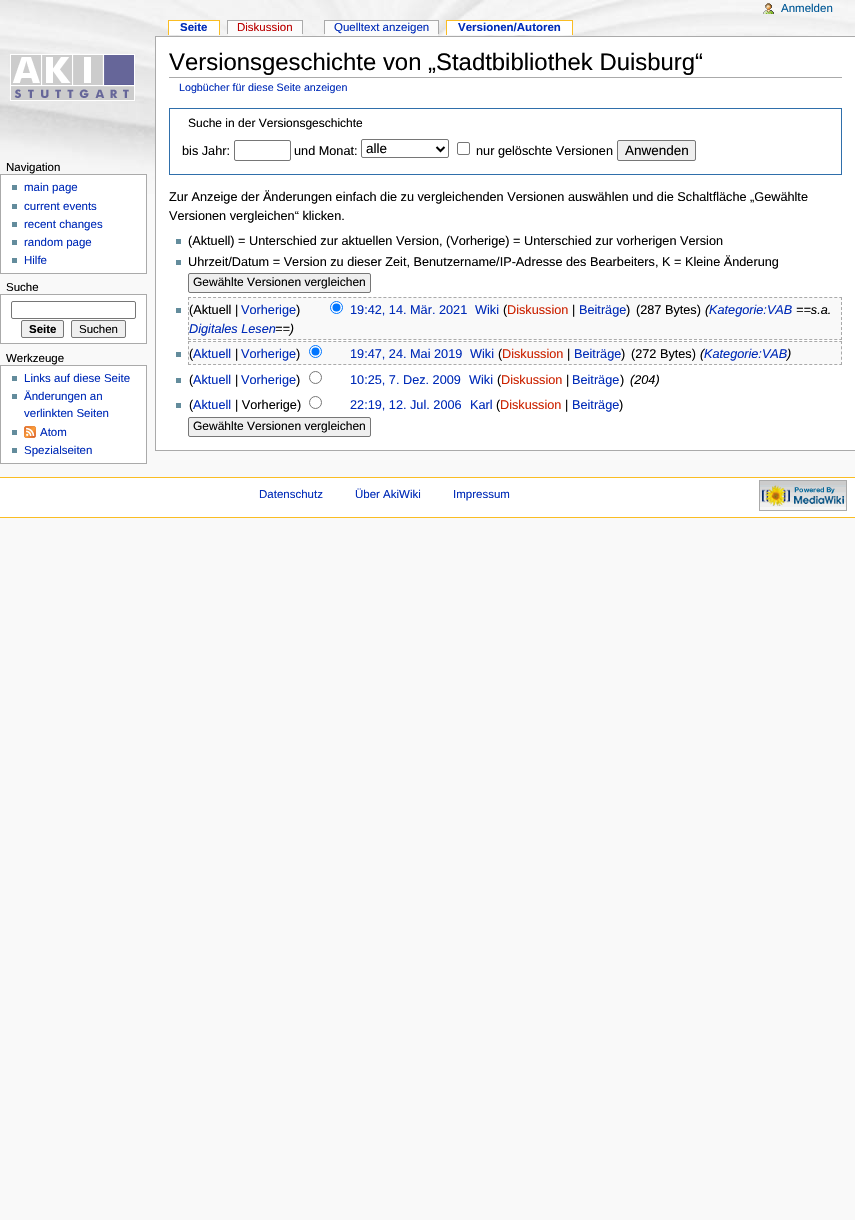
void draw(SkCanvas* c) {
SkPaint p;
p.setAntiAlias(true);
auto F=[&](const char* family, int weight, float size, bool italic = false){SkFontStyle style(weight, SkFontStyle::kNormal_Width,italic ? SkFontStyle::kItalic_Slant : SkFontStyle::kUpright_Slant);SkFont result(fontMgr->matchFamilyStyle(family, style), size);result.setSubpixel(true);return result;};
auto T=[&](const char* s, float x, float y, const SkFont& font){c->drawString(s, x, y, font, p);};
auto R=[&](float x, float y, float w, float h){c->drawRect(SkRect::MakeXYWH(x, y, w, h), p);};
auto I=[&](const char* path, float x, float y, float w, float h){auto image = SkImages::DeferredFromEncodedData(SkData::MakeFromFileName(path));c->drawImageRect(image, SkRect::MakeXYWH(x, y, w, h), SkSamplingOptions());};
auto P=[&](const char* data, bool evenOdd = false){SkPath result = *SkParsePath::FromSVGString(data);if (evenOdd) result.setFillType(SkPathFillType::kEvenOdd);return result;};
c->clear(0xfff9f9f9);
I("1.png",0,0,855,194);
I("2.png",763,3,11,11);
auto f1 = F("Liberation Sans",400,11.5);
p.setColor(0xff005896);
T("Anmelden",781,12,f1);
p.setColor(0xffffffff);
R(169,21,50,14);
auto f2 = F("Liberation Sans",700,11.5);
p.setColor(0xff002bb8);
T("Seite",180,31,f2);
p.setColor(0xfffabd23);
R(168,20,52,1);
R(219,20,1,15);
R(168,20,1,15);
p.setColor(0xfffbfbfb);
R(228,21,74,15);
p.setColor(0xffba0000);
T("Diskussion",237,31,f1);
p.setColor(0xffaaaaaa);
R(227,20,76,1);
R(302,20,1,14);
R(227,20,1,14);
p.setColor(0xfffbfbfb);
R(325,21,113,15);
p.setColor(0xff002bb8);
T("Quelltext anzeigen",334,31,f1);
p.setColor(0xffaaaaaa);
R(324,20,115,1);
R(438,20,1,14);
R(324,20,1,14);
p.setColor(0xffffffff);
R(447,21,125,14);
p.setColor(0xff002bb8);
T("Versionen/Autoren",458,31,f2);
p.setColor(0xfffabd23);
R(446,20,127,1);
R(572,20,1,15);
R(446,20,1,15);
I("3.png",10,54,125,47);
p.setColor(0xff000000);
T("Navigation",6,171,f1);
p.setColor(0xffffffff);
c->drawRect(SkRect::MakeXYWH(.5,174.5,146,99),p);
p.setStroke(true);
p.setStrokeWidth(1);
p.setColor(0xffaaaaaa);
c->drawRect(SkRect::MakeXYWH(.5,174.5,146,99),p);
p.setStroke(false);
p.setColor(0xff638c9c);
R(12,185,5,5);
p.setColor(0xff002bb8);
T("main page",24,191,f1);
p.setColor(0xff638c9c);
R(12,204,5,5);
p.setColor(0xff002bb8);
T("current events",24,210,f1);
p.setColor(0xff638c9c);
R(12,222,5,5);
p.setColor(0xff002bb8);
T("recent changes",24,228,f1);
p.setColor(0xff638c9c);
R(12,240,5,5);
p.setColor(0xff002bb8);
T("random page",24,246,f1);
p.setColor(0xff638c9c);
R(12,258,5,5);
p.setColor(0xff002bb8);
T("Hilfe",24,264,f1);
p.setColor(0xff000000);
T("Suche",6,291,f1);
p.setColor(0xffffffff);
c->drawRect(SkRect::MakeXYWH(.5,294.5,146,49),p);
p.setStroke(true);
p.setColor(0xffaaaaaa);
c->drawRect(SkRect::MakeXYWH(.5,294.5,146,49),p);
p.setColor(0xff767676);
c->drawRoundRect(SkRect::MakeXYWH(11.5,301.5,124,17),1.5,1.5,p);
p.setStroke(false);
p.setColor(0xffefefef);
c->drawRoundRect(SkRect::MakeXYWH(21.5,320.5,42,17),1.5,1.5,p);
p.setStroke(true);
p.setColor(0xff767676);
c->drawRoundRect(SkRect::MakeXYWH(21.5,320.5,42,17),1.5,1.5,p);
p.setStroke(false);
p.setColor(0xff000000);
T("Seite",29,333,f2);
p.setColor(0xffefefef);
c->drawRoundRect(SkRect::MakeXYWH(71.5,320.5,54,17),1.5,1.5,p);
p.setStroke(true);
p.setColor(0xff767676);
c->drawRoundRect(SkRect::MakeXYWH(71.5,320.5,54,17),1.5,1.5,p);
p.setStroke(false);
p.setColor(0xff000000);
T("Suchen",79,333,f1);
T("Werkzeuge",6,362,f1);
p.setColor(0xffffffff);
c->drawRect(SkRect::MakeXYWH(.5,365.5,146,98),p);
p.setStroke(true);
p.setColor(0xffaaaaaa);
c->drawRect(SkRect::MakeXYWH(.5,365.5,146,98),p);
p.setStroke(false);
p.setColor(0xff638c9c);
R(12,376,5,5);
p.setColor(0xff002bb8);
T("Links auf diese Seite",24,382,f1);
p.setColor(0xff638c9c);
R(12,394,5,5);
p.setColor(0xff002bb8);
T("Änderungen an",24,400,f1);
T("verlinkten Seiten",24,417,f1);
p.setColor(0xff638c9c);
R(12,430,5,5);
I("4.png",24,426,12,12);
p.setColor(0xff002bb8);
T("Atom",40,436,f1);
p.setColor(0xff638c9c);
R(12,448,5,5);
p.setColor(0xff002bb8);
T("Spezialseiten",24,454,f1);
p.setColor(0xffffffff);
R(156,37,699,413);
p.setColor(0xffaaaaaa);
R(155,36,700,1);
R(155,450,700,1);
R(155,36,1,415);
R(169,77,673,1);
auto f3 = F("Liberation Sans",400,23.9);
p.setColor(0xff000000);
T("Versionsgeschichte von „Stadtbibliothek Duisburg“",169,70,f3);
auto f4 = F("Liberation Sans",400,10.7);
p.setColor(0xff002bb8);
T("Logbücher für diese Seite anzeigen",179,91,f4);
p.setStroke(true);
p.setColor(0xff2f6fab);
c->drawRect(SkRect::MakeXYWH(169.5,108.5,672,66),p);
auto f5 = F("Liberation Sans",400,12);
p.setStroke(false);
p.setColor(0xff000000);
T("Suche in der Versionsgeschichte",188,127,f5);
auto f6 = F("Liberation Sans",400,12.7);
T("bis Jahr:",182,155,f6);
p.setStroke(true);
p.setColor(0xff767676);
c->drawRoundRect(SkRect::MakeXYWH(234.5,140.5,56,20),1.5,1.5,p);
p.setStroke(false);
p.setColor(0xff000000);
T("und Monat:",294,155,f6);
p.setStroke(true);
p.setColor(0xff767676);
c->drawRoundRect(SkRect::MakeXYWH(361.5,139.5,87,18),1.5,1.5,p);
p.setStrokeWidth(2);
p.setColor(0xff000000);
c->drawPath(P("M436.5 147l4 4l4-4"),p);
auto f7 = F("Liberation Sans",400,13.5);
p.setStroke(false);
T("alle",366,153,f7);
p.setStroke(true);
p.setStrokeWidth(1);
p.setColor(0xff767676);
c->drawRoundRect(SkRect::MakeXYWH(457.5,142.5,12,12),1.5,1.5,p);
p.setStroke(false);
p.setColor(0xff000000);
T("nur gelöschte Versionen",476,155,f6);
p.setColor(0xffefefef);
c->drawRoundRect(SkRect::MakeXYWH(617.5,140.5,78,20),1.5,1.5,p);
p.setStroke(true);
p.setColor(0xff767676);
c->drawRoundRect(SkRect::MakeXYWH(617.5,140.5,78,20),1.5,1.5,p);
p.setStroke(false);
p.setColor(0xff000000);
T("Anwenden",625,155,f7);
T("Zur Anzeige der Änderungen einfach die zu vergleichenden Versionen auswählen und die Schaltfläche „Gewählte",169,201,f6);
T("Versionen vergleichen“ klicken.",169,220,f6);
p.setColor(0xff638c9c);
R(176,239,5,5);
p.setColor(0xff000000);
T("(Aktuell) = Unterschied zur aktuellen Version, (Vorherige) = Unterschied zur vorherigen Version",188,245,f6);
p.setColor(0xff638c9c);
R(176,260,5,5);
p.setColor(0xff000000);
T("Uhrzeit/Datum = Version zu dieser Zeit, Benutzername/IP-Adresse des Bearbeiters, K = Kleine Änderung",188,266,f6);
p.setColor(0xffefefef);
c->drawRoundRect(SkRect::MakeXYWH(188.5,273.5,182,19),1.5,1.5,p);
p.setStroke(true);
p.setColor(0xff767676);
c->drawRoundRect(SkRect::MakeXYWH(188.5,273.5,182,19),1.5,1.5,p);
p.setStroke(false);
p.setColor(0xff000000);
T("Gewählte Versionen vergleichen",193,286,f5);
p.setColor(0xfff9f9f9);
R(188,297,654,43);
p.setStroke(true);
p.setColor(0xffaaaaaa);
p.setPathEffect(SkDashPathEffect::Make({{3,2.01f}}, 0));
c->drawPath(P("M188 297.5h654"),p);
p.setPathEffect(nullptr);
p.setPathEffect(SkDashPathEffect::Make({{3,2}}, 0));
c->drawPath(P("M841.5 297v43"),p);
p.setPathEffect(nullptr);
p.setPathEffect(SkDashPathEffect::Make({{3,2.01f}}, 0));
c->drawPath(P("M188 339.5h654"),p);
p.setPathEffect(nullptr);
p.setPathEffect(SkDashPathEffect::Make({{3,2}}, 0));
c->drawPath(P("M188.5 297v43"),p);
p.setPathEffect(nullptr);
p.setStroke(false);
p.setColor(0xff638c9c);
R(176,308,5,5);
p.setColor(0xff000000);
T("(Aktuell |",189,314,f6);
p.setColor(0xff002bb8);
T("Vorherige",241,314,f6);
p.setColor(0xff000000);
T(")",296,314,f6);
p.setColor(0xffffffff);
c->drawCircle(336.5,307.5,6,p);
p.setStroke(true);
p.setColor(0xff0075ff);
c->drawCircle(336.5,307.5,6,p);
p.setStroke(false);
c->drawCircle(336.5,307.5,4,p);
p.setColor(0xff002bb8);
T("19:42, 14. Mär. 2021",350,314,f6);
T("Wiki",475,314,f6);
p.setColor(0xff000000);
T("(",503,314,f6);
p.setColor(0xffcc2200);
T("Diskussion",507,314,f6);
p.setColor(0xff000000);
T("|",572,314,f6);
p.setColor(0xff002bb8);
T("Beiträge",579,314,f6);
p.setColor(0xff000000);
T(")",626,314,f6);
T("(287 Bytes)",636,314,f6);
auto f8 = F("Liberation Sans",400,12.7,true);
T("(",705,314,f8);
p.setColor(0xff002bb8);
T("Kategorie:VAB",709,314,f8);
p.setColor(0xff000000);
T("==s.a.",796,314,f8);
p.setColor(0xff002bb8);
T("Digitales Lesen",189,333,f8);
p.setColor(0xff000000);
T("==)",275,333,f8);
p.setColor(0xfff9f9f9);
R(188,341,654,24);
p.setStroke(true);
p.setColor(0xffaaaaaa);
p.setPathEffect(SkDashPathEffect::Make({{3,2.01f}}, 0));
c->drawPath(P("M188 341.5h654"),p);
p.setPathEffect(nullptr);
p.setPathEffect(SkDashPathEffect::Make({{3,2.25f}}, 0));
c->drawPath(P("M841.5 341v24"),p);
p.setPathEffect(nullptr);
p.setPathEffect(SkDashPathEffect::Make({{3,2.01f}}, 0));
c->drawPath(P("M188 364.5h654"),p);
p.setPathEffect(nullptr);
p.setPathEffect(SkDashPathEffect::Make({{3,2.25f}}, 0));
c->drawPath(P("M188.5 341v24"),p);
p.setPathEffect(nullptr);
p.setStroke(false);
p.setColor(0xff638c9c);
R(176,352,5,5);
p.setColor(0xff000000);
T("(",189,358,f6);
p.setColor(0xff002bb8);
T("Aktuell",193,358,f6);
p.setColor(0xff000000);
T("|",235,358,f6);
p.setColor(0xff002bb8);
T("Vorherige",241,358,f6);
p.setColor(0xff000000);
T(")",296,358,f6);
p.setColor(0xffffffff);
c->drawCircle(315.5,351.5,6,p);
p.setStroke(true);
p.setColor(0xff0075ff);
c->drawCircle(315.5,351.5,6,p);
p.setStroke(false);
c->drawCircle(315.5,351.5,4,p);
p.setColor(0xff002bb8);
T("19:47, 24. Mai 2019",350,358,f6);
T("Wiki",470,358,f6);
p.setColor(0xff000000);
T("(",498,358,f6);
p.setColor(0xffcc2200);
T("Diskussion",502,358,f6);
p.setColor(0xff000000);
T("|",567,358,f6);
p.setColor(0xff002bb8);
T("Beiträge",574,358,f6);
p.setColor(0xff000000);
T(")",621,358,f6);
T("(272 Bytes)",631,358,f6);
T("(",700,358,f8);
p.setColor(0xff002bb8);
T("Kategorie:VAB",704,358,f8);
p.setColor(0xff000000);
T(")",787,358,f8);
p.setColor(0xff638c9c);
R(176,378,5,5);
p.setColor(0xff000000);
T("(",189,384,f6);
p.setColor(0xff002bb8);
T("Aktuell",193,384,f6);
p.setColor(0xff000000);
T("|",235,384,f6);
p.setColor(0xff002bb8);
T("Vorherige",241,384,f6);
p.setColor(0xff000000);
T(")",296,384,f6);
p.setStroke(true);
p.setColor(0xff767676);
c->drawCircle(315.5,377.5,6,p);
p.setStroke(false);
p.setColor(0xff002bb8);
T("10:25, 7. Dez. 2009",350,384,f6);
T("Wiki",469,384,f6);
p.setColor(0xff000000);
T("(",497,384,f6);
p.setColor(0xffcc2200);
T("Diskussion",501,384,f6);
p.setColor(0xff000000);
T("|",566,384,f6);
p.setColor(0xff002bb8);
T("Beiträge",572,384,f6);
p.setColor(0xff000000);
T(")",620,384,f6);
T("(204)",630,384,f8);
p.setColor(0xff638c9c);
R(176,403,5,5);
p.setColor(0xff000000);
T("(",189,409,f6);
p.setColor(0xff002bb8);
T("Aktuell",193,409,f6);
p.setColor(0xff000000);
T("| Vorherige)",235,409,f6);
p.setStroke(true);
p.setColor(0xff767676);
c->drawCircle(315.5,402.5,6,p);
p.setStroke(false);
p.setColor(0xff002bb8);
T("22:19, 12. Jul. 2006",350,409,f6);
T("Karl",470,409,f6);
p.setColor(0xff000000);
T("(",496,409,f6);
p.setColor(0xffcc2200);
T("Diskussion",500,409,f6);
p.setColor(0xff000000);
T("|",565,409,f6);
p.setColor(0xff002bb8);
T("Beiträge",572,409,f6);
p.setColor(0xff000000);
T(")",619,409,f6);
p.setColor(0xffefefef);
c->drawRoundRect(SkRect::MakeXYWH(188.5,417.5,182,19),1.5,1.5,p);
p.setStroke(true);
p.setColor(0xff767676);
c->drawRoundRect(SkRect::MakeXYWH(188.5,417.5,182,19),1.5,1.5,p);
p.setStroke(false);
p.setColor(0xff000000);
T("Gewählte Versionen vergleichen",193,430,f5);
p.setColor(0xffffffff);
R(0,478,855,39);
p.setColor(0xfffabd23);
R(0,477,855,1);
R(0,517,855,1);
p.setColor(0xff002bb8);
T("Datenschutz",259,498,f1);
T("Über AkiWiki",355,498,f1);
T("Impressum",453,498,f1);
I("5.png",759,480,88,31);
}
